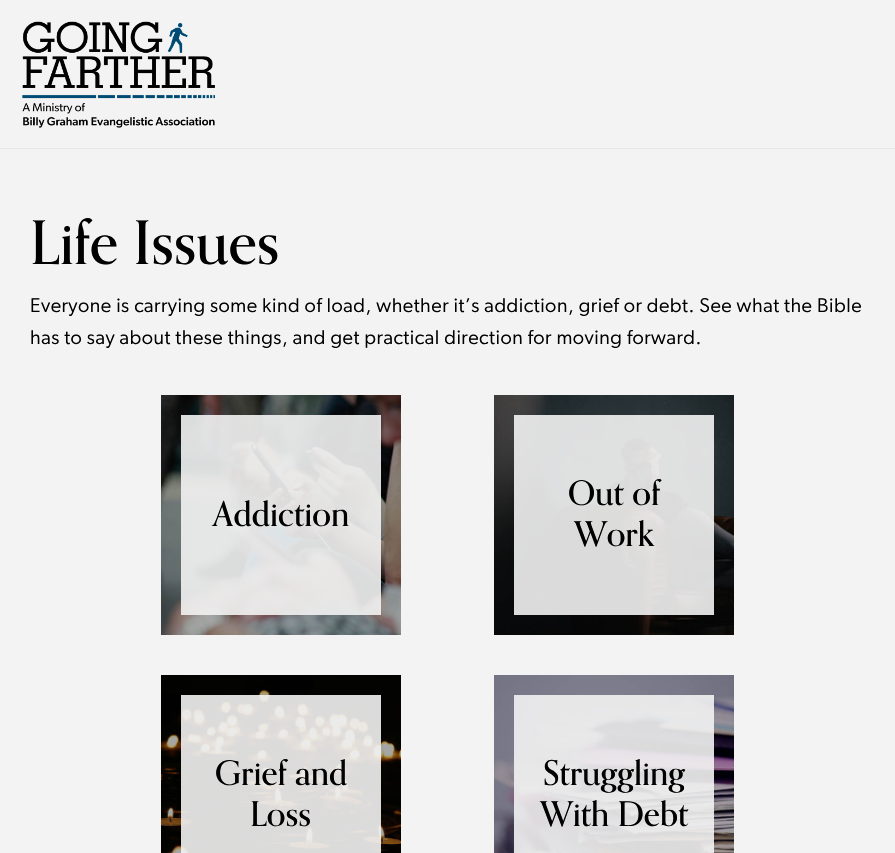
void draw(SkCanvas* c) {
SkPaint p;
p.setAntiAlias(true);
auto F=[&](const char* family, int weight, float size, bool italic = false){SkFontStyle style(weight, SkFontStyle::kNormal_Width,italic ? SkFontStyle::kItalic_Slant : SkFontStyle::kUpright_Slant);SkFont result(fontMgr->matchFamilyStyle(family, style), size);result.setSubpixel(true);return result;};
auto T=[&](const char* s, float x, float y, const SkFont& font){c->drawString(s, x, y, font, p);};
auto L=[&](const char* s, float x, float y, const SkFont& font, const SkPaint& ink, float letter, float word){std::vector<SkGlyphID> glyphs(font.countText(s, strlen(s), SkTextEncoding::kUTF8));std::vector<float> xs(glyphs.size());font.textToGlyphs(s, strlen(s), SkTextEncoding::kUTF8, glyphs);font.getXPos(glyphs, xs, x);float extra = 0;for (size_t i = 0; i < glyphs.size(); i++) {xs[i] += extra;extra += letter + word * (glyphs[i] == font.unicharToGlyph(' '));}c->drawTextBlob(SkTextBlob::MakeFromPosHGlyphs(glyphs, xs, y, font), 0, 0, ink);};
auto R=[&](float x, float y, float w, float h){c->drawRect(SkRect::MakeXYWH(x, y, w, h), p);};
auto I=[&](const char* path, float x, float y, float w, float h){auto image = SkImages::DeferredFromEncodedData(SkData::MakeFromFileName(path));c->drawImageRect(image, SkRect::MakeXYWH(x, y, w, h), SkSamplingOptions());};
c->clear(0xfff3f3f3);
p.setColor(0xffe6e6e6);
R(0,148,895,1);
I("1.png",22,21,193,107);
auto f1 = F("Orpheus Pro",500,60);
p.setColor(0xff000000);
T("Life Issues",30,264,f1);
auto f2 = F("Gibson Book",400,20);
L("Everyone is carrying some kind of load, whether it’s addiction, grief or debt. See what the Bible",30,312,f2,p,.5,0);
L("has to say about these things, and get practical direction for moving forward.",30,344,f2,p,.5,0);
I("2.png",161,395,240,240);
p.setColor(0xe6f2f2f2);
R(181,415,200,200);
auto f3 = F("Orpheus Pro",500,34);
p.setColor(0xff000000);
T("Addiction",213,526,f3);
I("3.png",494,395,240,240);
p.setColor(0xe6f2f2f2);
R(514,415,200,200);
p.setColor(0xff000000);
T("Out of",568,505,f3);
T("Work",574,546,f3);
I("4.png",161,675,240,178);
p.setColor(0xe6f2f2f2);
R(181,695,200,158);
p.setColor(0xff000000);
T("Grief and",215,785,f3);
T("Loss",250,826,f3);
I("5.png",494,675,240,178);
p.setColor(0xe6f2f2f2);
R(514,695,200,158);
p.setColor(0xff000000);
T("Struggling",543,785,f3);
T("With Debt",540,826,f3);
}
